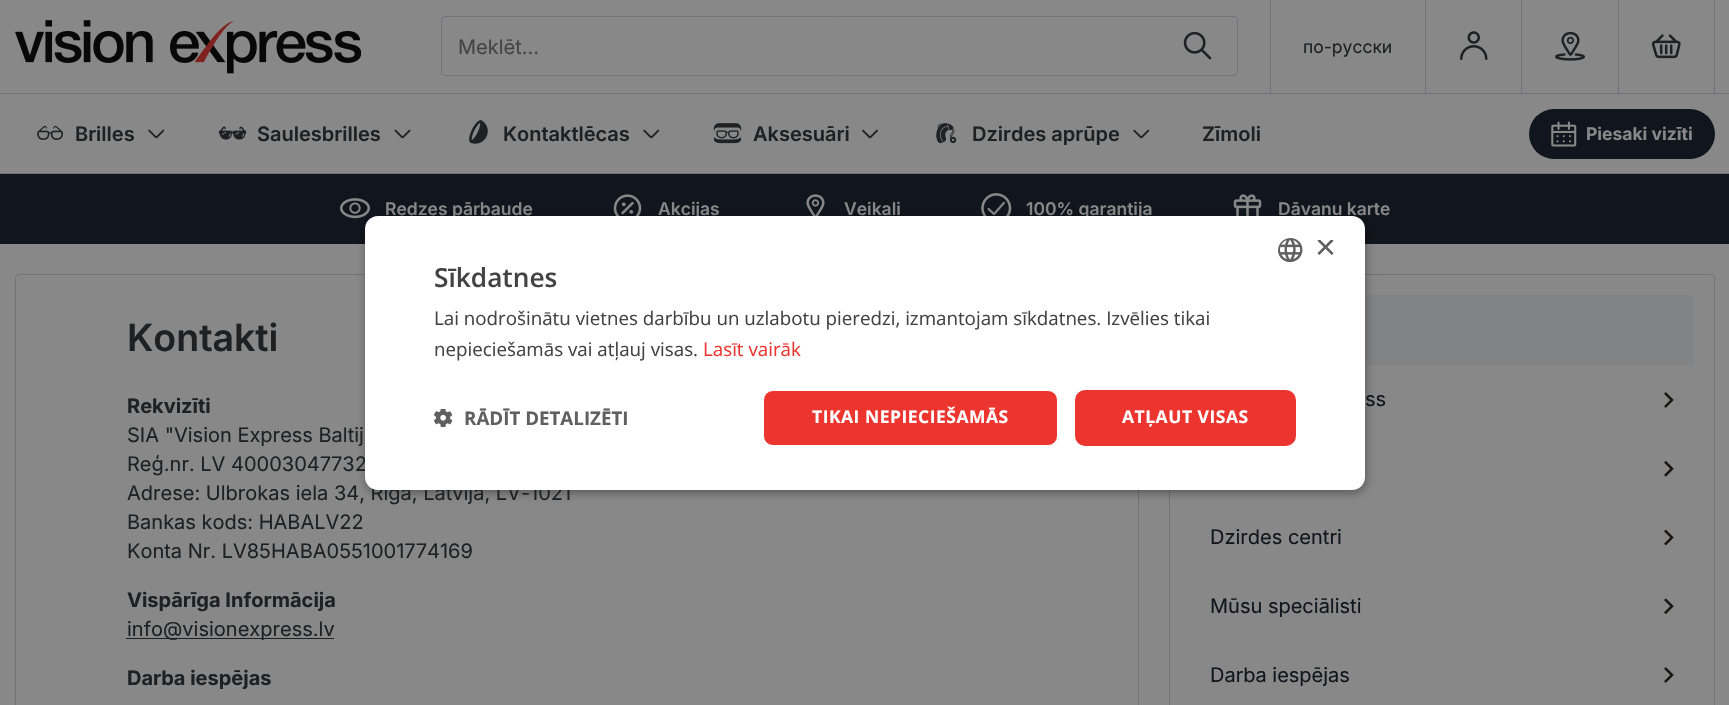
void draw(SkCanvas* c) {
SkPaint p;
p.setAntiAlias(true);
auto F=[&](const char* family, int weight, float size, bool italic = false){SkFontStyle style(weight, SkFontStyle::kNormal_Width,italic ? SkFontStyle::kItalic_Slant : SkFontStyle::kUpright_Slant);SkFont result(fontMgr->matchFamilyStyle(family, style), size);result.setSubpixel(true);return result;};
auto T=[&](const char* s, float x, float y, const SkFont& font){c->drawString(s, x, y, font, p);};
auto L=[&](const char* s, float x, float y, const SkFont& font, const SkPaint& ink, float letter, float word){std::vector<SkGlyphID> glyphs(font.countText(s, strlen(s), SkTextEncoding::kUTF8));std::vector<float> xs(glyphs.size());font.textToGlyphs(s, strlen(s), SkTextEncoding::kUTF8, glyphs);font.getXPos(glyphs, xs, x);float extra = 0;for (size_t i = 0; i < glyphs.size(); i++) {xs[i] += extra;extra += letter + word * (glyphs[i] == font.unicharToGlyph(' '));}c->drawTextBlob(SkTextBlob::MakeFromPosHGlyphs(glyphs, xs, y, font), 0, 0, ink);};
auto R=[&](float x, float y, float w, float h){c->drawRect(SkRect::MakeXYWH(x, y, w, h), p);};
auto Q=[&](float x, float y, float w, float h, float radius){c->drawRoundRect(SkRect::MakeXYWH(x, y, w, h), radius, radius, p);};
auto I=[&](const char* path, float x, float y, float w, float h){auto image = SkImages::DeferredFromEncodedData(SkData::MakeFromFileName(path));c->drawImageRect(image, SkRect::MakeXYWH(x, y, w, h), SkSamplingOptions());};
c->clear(0xff888888);
p.setColor(0xff717377);
R(0,173,1729,1);
I("1.png",15,20,346,54);
R(1270,0,1,93);
p.setStroke(true);
p.setStrokeWidth(1);
c->drawRoundRect(SkRect::MakeXYWH(441.5,16.5,796,59),3.5,3.5,p);
auto f1 = F("Inter",400,20);
p.setStroke(false);
p.setColor(0xff434343);
T("Meklēt...",458,54,f1);
I("2.png",1183,31,29,29);
p.setColor(0xff717377);
R(1425,0,1,93);
auto f2 = F("Inter",400,17.5);
p.setColor(0xff1e2021);
T("по-русски",1303,53,f2);
p.setColor(0xff717377);
R(1521,0,1,93);
I("3.png",1460,31,28,29);
R(1618,0,1,93);
I("4.png",1555,31,30,30);
R(1714,0,1,93);
I("5.png",1651,34,30,25);
R(0,93,1729,1);
I("6.png",37,125,26,15);
auto f3 = F("Inter",600,20);
p.setColor(0xff1e2021);
T("Brilles",75,141,f3);
I("7.png",148,129,17,10);
I("8.png",218,126,29,14);
T("Saulesbrilles",257,141,f3);
I("9.png",394,129,17,10);
I("10.png",469,120,19,24);
T("Kontaktlēcas",503,141,f3);
I("7.png",643,129,17,10);
I("11.png",713,123,29,21);
T("Aksesuāri",753,141,f3);
I("12.png",862,129,16,10);
I("13.png",936,123,21,21);
T("Dzirdes aprūpe",972,141,f3);
I("7.png",1133,129,17,10);
T("Zīmoli",1202,141,f3);
p.setColor(0xff11151d);
Q(1529,109,186,50,25);
I("14.png",1551,121,26,26);
auto f4 = F("Inter",700,17.5);
p.setColor(0xff888888);
T("Piesaki vizīti",1586,140,f4);
p.setColor(0xff11151d);
R(0,174,1729,70);
I("15.png",340,198,30,21);
auto f5 = F("Inter",600,17.5);
p.setColor(0xff888888);
T("Redzes pārbaude",385,215,f5);
I("16.png",613,194,29,22);
T("Akcijas",658,215,f5);
I("17.png",806,194,19,22);
T("Veikali",844,215,f5);
I("18.png",981,193,31,23);
T("100% garantija",1026,215,f5);
I("19.png",1233,194,29,22);
T("Dāvanu karte",1278,215,f5);
p.setStroke(true);
p.setColor(0xff717377);
c->drawRoundRect(SkRect::MakeXYWH(15.5,274.5,1123,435),3.5,3.5,p);
c->drawRoundRect(SkRect::MakeXYWH(1169.5,274.5,545,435),3.5,3.5,p);
p.setStroke(false);
p.setColor(0xff828384);
R(1365,295,329,70);
p.setColor(0x59000000);
p.setMaskFilter(SkMaskFilter::MakeBlur(kNormal_SkBlurStyle, 5));
c->drawRoundRect(SkRect::MakeXYWH(366,219,1000,274),13,13,p);
p.setMaskFilter(nullptr);
p.setColor(0xff1e2021);
T("Reģ.nr. LV 40003047732",127,471,f1);
T("Adrese: Ulbrokas iela 34, Rīga, Latvija, LV-1021",127,500,f1);
p.setColor(0xffffffff);
Q(365,216,1000,274,13);
I("20.png",1278,238,25,25);
c->save();
c->clipRect(SkRect::MakeXYWH(1315,240,19,19));
auto f6 = F("Liberation Sans",400,36);
p.setColor(0xff606060);
T("×",1315,259,f6);
c->restore();
auto f7 = F("Open Sans",600,26.25);
p.setColor(0xff434343);
T("Sīkdatnes",434,287,f7);
auto f8 = F("Open Sans",400,18.75);
T("Lai nodrošinātu vietnes darbību un uzlabotu pieredzi, izmantojam sīkdatnes. Izvēlies tikai",434,325,f8);
T("nepieciešamās vai atļauj visas.",434,356,f8);
p.setColor(0xffed3530);
T("Lasīt vairāk",703,356,f8);
I("21.png",434,409,19,18);
auto f9 = F("Open Sans",700,18.75);
p.setColor(0xff606060);
T("RĀDĪT DETALIZĒTI",464,425,f9);
p.setColor(0xffed3530);
c->drawRoundRect(SkRect::MakeXYWH(763.5,390.5,294,55),9.5,9.5,p);
p.setStroke(true);
p.setColor(0xffffffff);
c->drawRoundRect(SkRect::MakeXYWH(763.5,390.5,294,55),9.5,9.5,p);
auto f10 = F("Open Sans",700,17.5);
p.setStroke(false);
L("TIKAI NEPIECIEŠAMĀS",812,423,f10,p,.5,0);
p.setColor(0xffed3530);
Q(1075,390,221,56,10);
p.setColor(0xffffffff);
L("ATĻAUT VISAS",1122,423,f10,p,.5,0);
auto f11 = F("Inter",600,37.5);
p.setColor(0xff1e2021);
T("Kontakti",127,351,f11);
auto f12 = F("Inter",700,20);
T("Rekvizīti",127,413,f12);
T("SIA \"Vision Express Baltij",127,442,f1);
T("Bankas kods: HABALV22",127,529,f1);
T("Konta Nr. LV85HABA0551001774169",127,558,f1);
T("Vispārīga Informācija",127,607,f12);
R(126,638,208,1);
T("info@visionexpress.lv",127,636,f1);
T("Darba iespējas",127,685,f12);
I("22.png",1664,392,10,16);
p.setColor(0xff11151d);
T("ss",1365,406,f1);
I("23.png",1664,460,10,17);
I("24.png",1664,529,10,17);
T("Dzirdes centri",1210,544,f1);
I("25.png",1664,598,10,17);
T("Mūsu speciālisti",1210,613,f1);
I("22.png",1664,667,10,16);
T("Darba iespējas",1210,682,f1);
}
